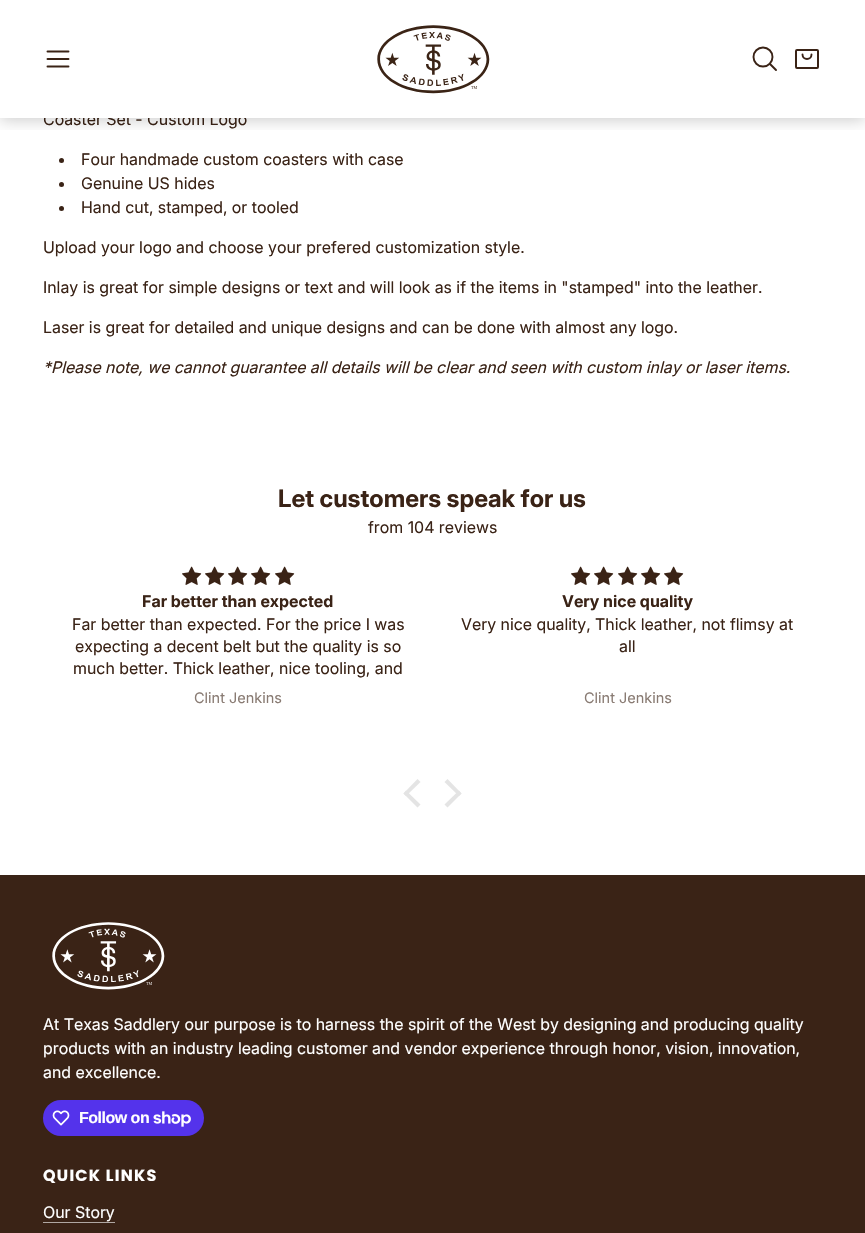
void draw(SkCanvas* c) {
SkPaint p;
p.setAntiAlias(true);
auto F=[&](const char* family, int weight, float size, bool italic = false){SkFontStyle style(weight, SkFontStyle::kNormal_Width,italic ? SkFontStyle::kItalic_Slant : SkFontStyle::kUpright_Slant);SkFont result(fontMgr->matchFamilyStyle(family, style), size);result.setSubpixel(true);return result;};
auto T=[&](const char* s, float x, float y, const SkFont& font){c->drawString(s, x, y, font, p);};
auto L=[&](const char* s, float x, float y, const SkFont& font, const SkPaint& ink, float letter, float word){std::vector<SkGlyphID> glyphs(font.countText(s, strlen(s), SkTextEncoding::kUTF8));std::vector<float> xs(glyphs.size());font.textToGlyphs(s, strlen(s), SkTextEncoding::kUTF8, glyphs);font.getXPos(glyphs, xs, x);float extra = 0;for (size_t i = 0; i < glyphs.size(); i++) {xs[i] += extra;extra += letter + word * (glyphs[i] == font.unicharToGlyph(' '));}c->drawTextBlob(SkTextBlob::MakeFromPosHGlyphs(glyphs, xs, y, font), 0, 0, ink);};
auto R=[&](float x, float y, float w, float h){c->drawRect(SkRect::MakeXYWH(x, y, w, h), p);};
auto Q=[&](float x, float y, float w, float h, float radius){c->drawRoundRect(SkRect::MakeXYWH(x, y, w, h), radius, radius, p);};
auto I=[&](const char* path, float x, float y, float w, float h){auto image = SkImages::DeferredFromEncodedData(SkData::MakeFromFileName(path));c->drawImageRect(image, SkRect::MakeXYWH(x, y, w, h), SkSamplingOptions());};
auto P=[&](const char* data, bool evenOdd = false){SkPath result = *SkParsePath::FromSVGString(data);if (evenOdd) result.setFillType(SkPathFillType::kEvenOdd);return result;};
c->clear(0xffffffff);
auto f1 = F("Inter",400,16);
p.setColor(0xff3a2316);
T("Coaster Set - Custom Logo",43,125,f1);
p.setColor(0xffffffff);
R(44,113,202,5);
c->save();
c->clipRect(SkRect::MakeXYWH(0,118,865,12));
p.setColor(0x33000000);
p.setMaskFilter(SkMaskFilter::MakeBlur(kNormal_SkBlurStyle, 7.5));
c->drawRect(SkRect::MakeXYWH(0,2,865,118),p);
p.setMaskFilter(nullptr);
c->restore();
p.setStroke(true);
p.setStrokeWidth(1.9);
p.setStrokeCap(SkPaint::kRound_Cap);
p.setStrokeJoin(SkPaint::kRound_Join);
p.setColor(0xff3a2316);
c->drawPath(P("M47.5 59h21m-21-7.5h21m-21 15h21"),p);
I("1.png",377,25,113,69);
p.setStrokeCap(SkPaint::kButt_Cap);
p.setStrokeJoin(SkPaint::kMiter_Join);
c->drawCircle(763,57,9.5,p);
p.setStrokeCap(SkPaint::kRound_Cap);
p.setStrokeJoin(SkPaint::kRound_Join);
c->drawPath(P("M770 64l6 6"),p);
p.setStrokeWidth(2);
p.setStrokeCap(SkPaint::kButt_Cap);
p.setStrokeJoin(SkPaint::kMiter_Join);
c->drawRoundRect(SkRect::MakeXYWH(796,50,22,18),1,1,p);
p.setStrokeWidth(1.9);
p.setStrokeCap(SkPaint::kRound_Cap);
p.setStrokeJoin(SkPaint::kRound_Join);
c->drawPath(P("M811.5 54.5c0 6-9 6-9 0"),p);
p.setStroke(false);
c->drawCircle(61.5,160.5,2.5,p);
T("Four handmade custom coasters with case",81,165,f1);
c->drawCircle(61.5,184.5,2.5,p);
T("Genuine US hides",81,189,f1);
c->drawCircle(61.5,208.5,2.5,p);
T("Hand cut, stamped, or tooled",81,213,f1);
T("Upload your logo and choose your prefered customization style.",43,253,f1);
T("Inlay is great for simple designs or text and will look as if the items in \"stamped\" into the leather.",43,293,f1);
T("Laser is great for detailed and unique designs and can be done with almost any logo.",43,333,f1);
auto f2 = F("Inter",400,16,true);
L("*Please note, we cannot guarantee all details will be clear and seen with custom inlay or laser items.",43,373,f2,p,0,-.1);
auto f3 = F("Inter",700,24);
T("Let customers speak for us",278,507,f3);
T("from 104 reviews",368,533,f1);
I("2.png",182,566,20,19);
I("2.png",205,566,20,19);
I("2.png",228,566,20,19);
I("2.png",251,566,20,19);
I("2.png",275,566,20,19);
auto f4 = F("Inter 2",700,16);
T("Far better than expected",142,607,f4);
T("Far better than expected. For the price I was",72,630,f1);
T("expecting a decent belt but the quality is so",75,652,f1);
T("much better. Thick leather, nice tooling, and",73,674,f1);
auto f5 = F("Inter 2",400,14.5);
p.setColor(0xff897b73);
T("Clint Jenkins",194,703,f5);
I("2.png",571,566,20,19);
I("2.png",594,566,20,19);
I("2.png",618,566,20,19);
I("2.png",641,566,20,19);
I("2.png",664,566,20,19);
p.setColor(0xff3a2316);
T("Very nice quality",562,607,f4);
T("Very nice quality, Thick leather, not flimsy at",461,630,f1);
T("all",619,652,f1);
p.setColor(0xff897b73);
T("Clint Jenkins",584,703,f5);
p.setColor(0xffe4e4e4);
c->drawPath(P("M403.5 793.5l14-14.5l3 3l-14.5 14z"),p);
c->drawPath(P("M403.5 793.5l2.5-3l14.5 14l-3 3zm41-11.5l3-3l14 14.5l-2.5 2.5z"),p);
c->drawPath(P("M444.5 804.5l14.5-14l2.5 3l-14 14z"),p);
p.setColor(0xff3a2316);
R(0,875,865,358);
I("3.png",52,922,113,68);
p.setColor(0xffffffff);
T("At Texas Saddlery our purpose is to harness the spirit of the West by designing and producing quality",43,1030,f1);
T("products with an industry leading customer and vendor experience through honor, vision, innovation,",43,1054,f1);
T("and excellence.",43,1078,f1);
p.setColor(0xff5433eb);
Q(43,1100,161,36,18);
I("4.png",52,1110,18,16);
auto f6 = F("Liberation Sans",700,16);
p.setColor(0xffffffff);
L("Follow on",79,1123,f6,p,-.5,0);
I("5.png",153,1111,38,16);
auto f7 = F("Poppins",700,16);
L("QUICK LINKS",43,1181,f7,p,1.25,0);
T("Our Story",43,1218,f1);
p.setColor(0xffb0a7a2);
R(43,1222,72,1);
}
